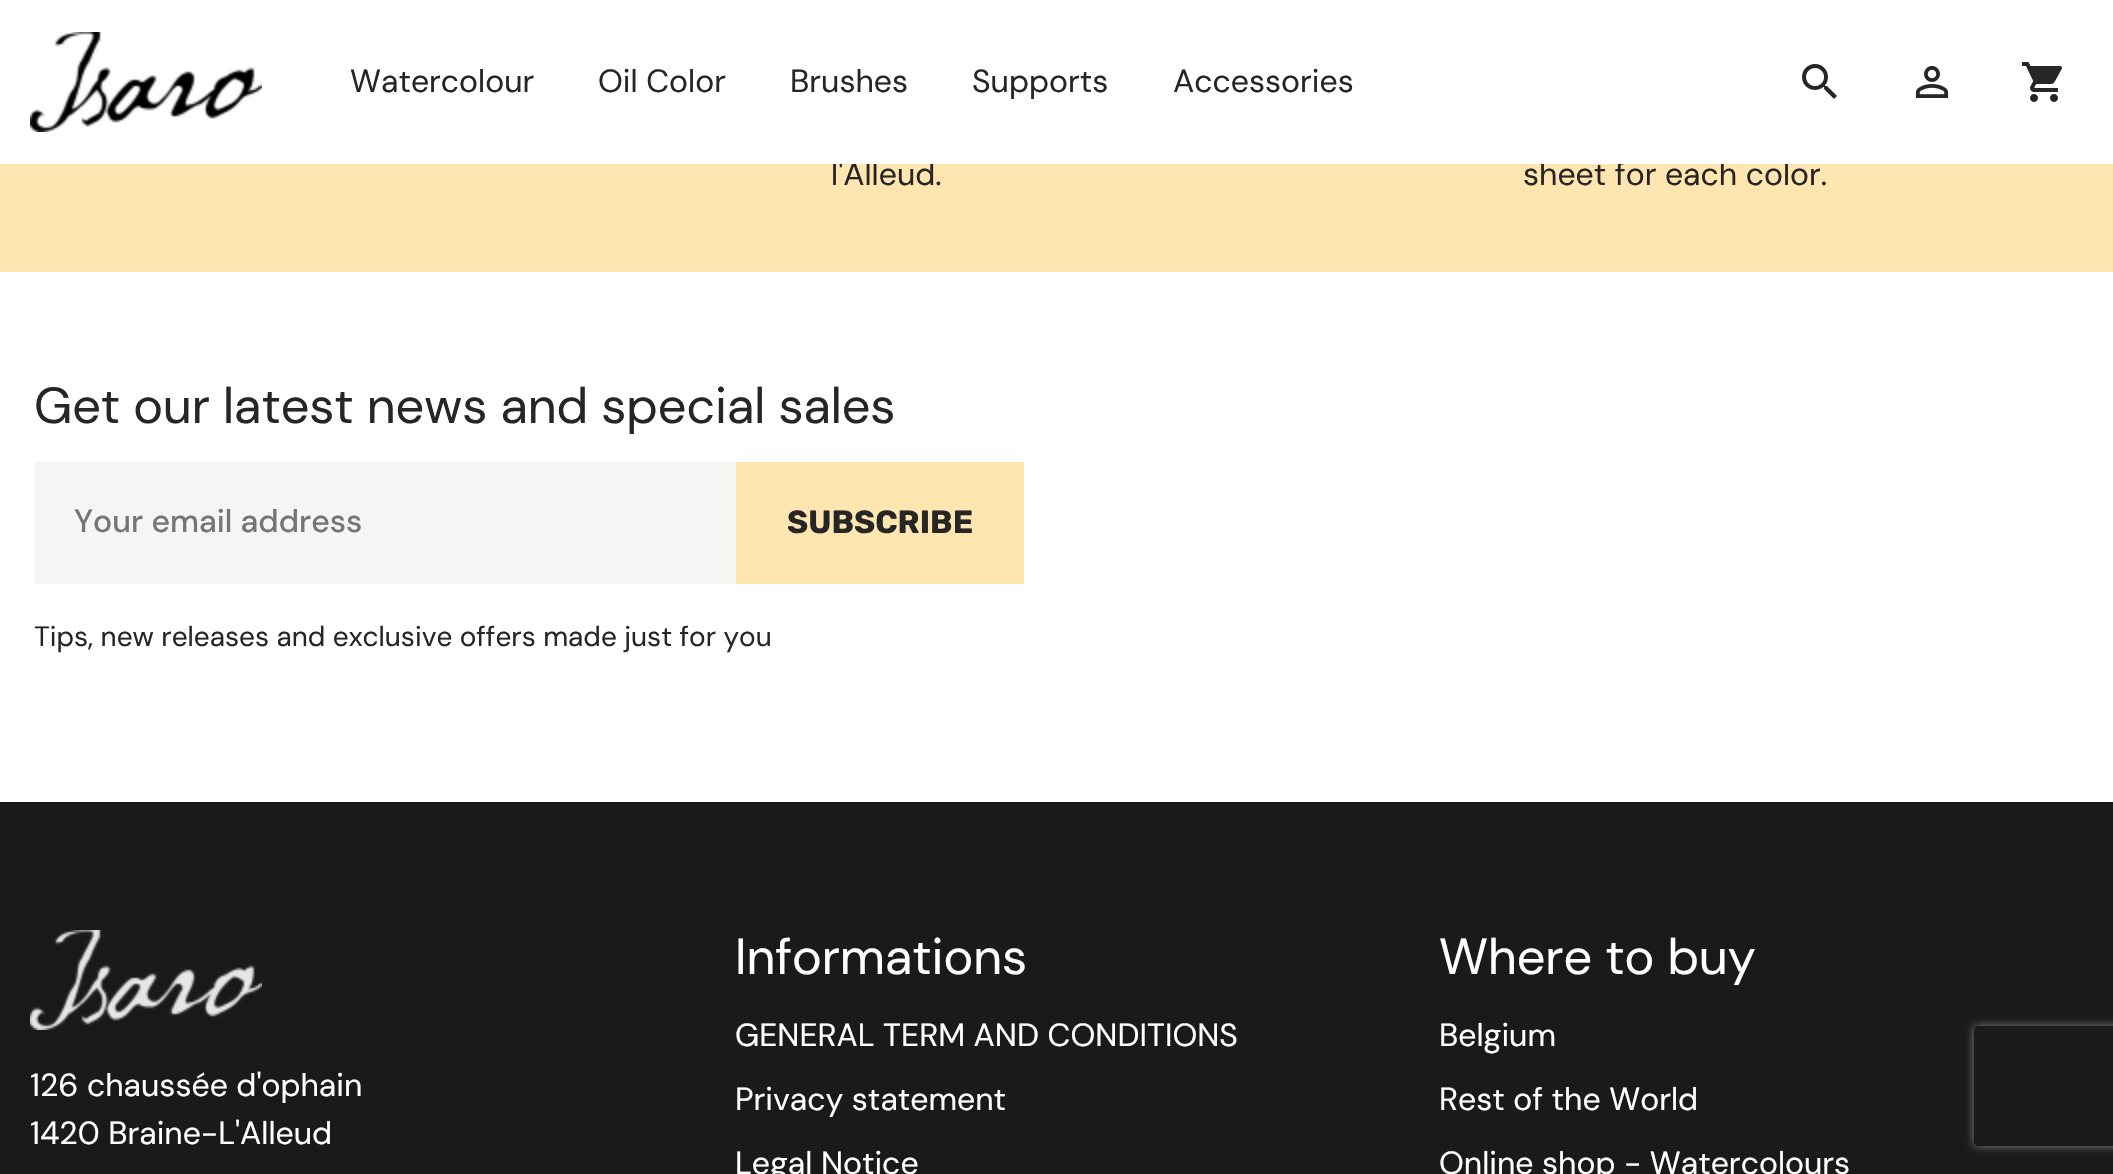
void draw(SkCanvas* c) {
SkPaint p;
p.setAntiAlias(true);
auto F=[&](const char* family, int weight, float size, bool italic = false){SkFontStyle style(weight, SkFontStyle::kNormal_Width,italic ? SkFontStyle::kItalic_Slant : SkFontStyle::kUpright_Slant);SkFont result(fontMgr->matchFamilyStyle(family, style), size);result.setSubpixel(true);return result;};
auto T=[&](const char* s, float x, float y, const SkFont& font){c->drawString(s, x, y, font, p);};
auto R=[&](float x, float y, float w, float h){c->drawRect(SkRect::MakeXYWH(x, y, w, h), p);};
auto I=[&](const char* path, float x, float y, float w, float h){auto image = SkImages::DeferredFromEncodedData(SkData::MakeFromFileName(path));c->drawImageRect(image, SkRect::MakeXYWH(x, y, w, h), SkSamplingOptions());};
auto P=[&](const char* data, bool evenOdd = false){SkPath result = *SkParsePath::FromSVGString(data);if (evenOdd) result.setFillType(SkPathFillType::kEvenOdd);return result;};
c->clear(0xffffffff);
p.setColor(0xffffe5af);
R(0,164,2113,108);
auto f1 = F("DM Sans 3",400,32);
p.setColor(0xff262626);
T("l'Alleud.",831,185,f1);
T("sheet for each color.",1523,185,f1);
p.setColor(0xffffffff);
R(833,160,955,4);
I("1.png",30,32,232,100);
p.setColor(0xff262626);
T("Watercolour",350,92,f1);
T("Oil Color",598,92,f1);
T("Brushes",790,92,f1);
T("Supports",972,92,f1);
T("Accessories",1173,92,f1);
I("2.png",1802,64,35,35);
I("3.png",1915,66,34,32);
I("4.png",2021,62,41,40);
auto f2 = F("DM Sans",400,50.6);
T("Get our latest news and special sales",34,423,f2);
p.setColor(0xfff5f5f3);
R(34,462,702,122);
auto f3 = F("DM Sans",500,32);
p.setColor(0xff757575);
T("Your email address",74,532,f3);
p.setColor(0xffffe5af);
R(736,462,288,122);
auto f4 = F("Rubik",700,32);
p.setColor(0xff262626);
T("SUBSCRIBE",787,533,f4);
p.setColor(0xff1a1a1a);
R(0,802,2113,372);
c->save();
c->clipPath(P("M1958 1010h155v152h-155zm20 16h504c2 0 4 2 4 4v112c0 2-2 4-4 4h-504c-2 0-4-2-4-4v-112c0-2 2-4 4-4z",true),true);
p.setColor(0xff808080);
p.setMaskFilter(SkMaskFilter::MakeBlur(kNormal_SkBlurStyle, 5));
c->drawRoundRect(SkRect::MakeXYWH(1974,1026,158,120),4,4,p);
p.setMaskFilter(nullptr);
c->restore();
auto f5 = F("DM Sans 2",400,28);
p.setColor(0xff262626);
T("Tips, new releases and exclusive offers made just for you",34,646,f5);
I("5.png",30,930,232,100);
p.setColor(0xffffffff);
T("126 chaussée d'ophain",30,1096,f1);
T("1420 Braine-L'Alleud",30,1144,f1);
T("Informations",735,974,f2);
T("GENERAL TERM AND CONDITIONS",735,1046,f1);
T("Privacy statement",735,1110,f1);
T("Legal Notice",735,1174,f1);
T("Where to buy",1439,974,f2);
T("Belgium",1439,1046,f1);
T("Rest of the World",1439,1110,f1);
T("Online shop - Watercolours",1439,1174,f1);
}
